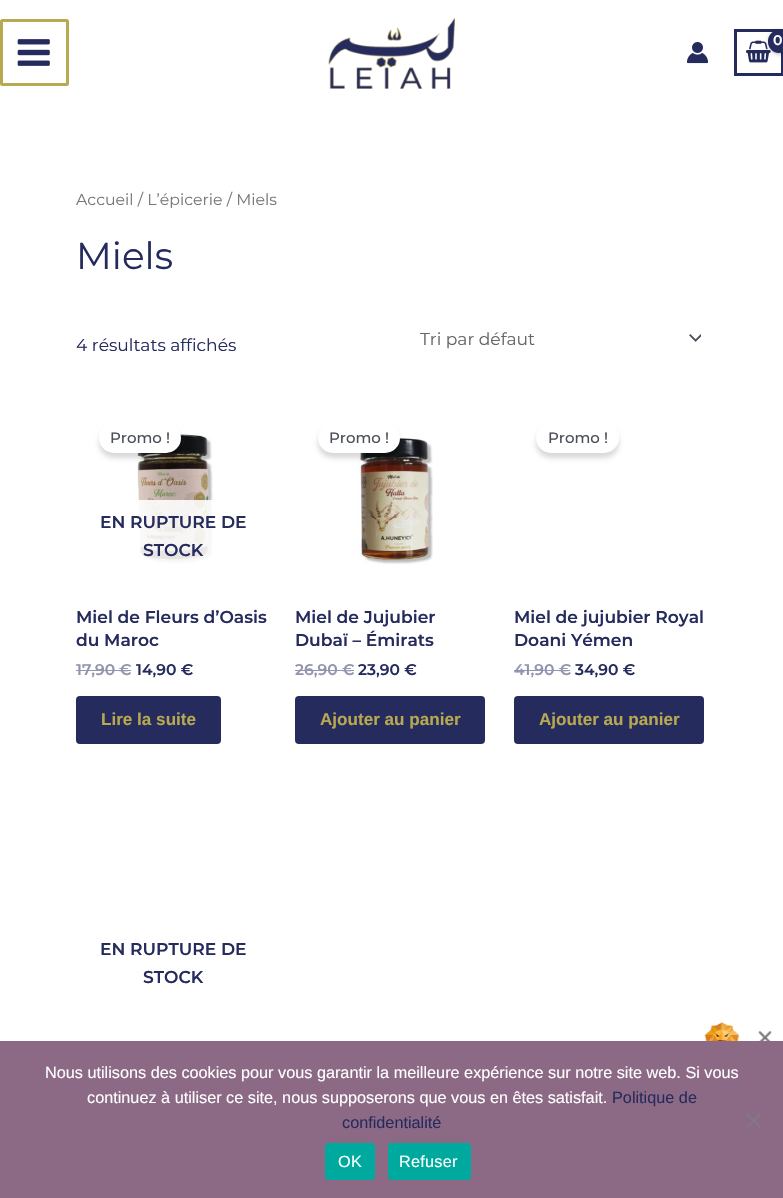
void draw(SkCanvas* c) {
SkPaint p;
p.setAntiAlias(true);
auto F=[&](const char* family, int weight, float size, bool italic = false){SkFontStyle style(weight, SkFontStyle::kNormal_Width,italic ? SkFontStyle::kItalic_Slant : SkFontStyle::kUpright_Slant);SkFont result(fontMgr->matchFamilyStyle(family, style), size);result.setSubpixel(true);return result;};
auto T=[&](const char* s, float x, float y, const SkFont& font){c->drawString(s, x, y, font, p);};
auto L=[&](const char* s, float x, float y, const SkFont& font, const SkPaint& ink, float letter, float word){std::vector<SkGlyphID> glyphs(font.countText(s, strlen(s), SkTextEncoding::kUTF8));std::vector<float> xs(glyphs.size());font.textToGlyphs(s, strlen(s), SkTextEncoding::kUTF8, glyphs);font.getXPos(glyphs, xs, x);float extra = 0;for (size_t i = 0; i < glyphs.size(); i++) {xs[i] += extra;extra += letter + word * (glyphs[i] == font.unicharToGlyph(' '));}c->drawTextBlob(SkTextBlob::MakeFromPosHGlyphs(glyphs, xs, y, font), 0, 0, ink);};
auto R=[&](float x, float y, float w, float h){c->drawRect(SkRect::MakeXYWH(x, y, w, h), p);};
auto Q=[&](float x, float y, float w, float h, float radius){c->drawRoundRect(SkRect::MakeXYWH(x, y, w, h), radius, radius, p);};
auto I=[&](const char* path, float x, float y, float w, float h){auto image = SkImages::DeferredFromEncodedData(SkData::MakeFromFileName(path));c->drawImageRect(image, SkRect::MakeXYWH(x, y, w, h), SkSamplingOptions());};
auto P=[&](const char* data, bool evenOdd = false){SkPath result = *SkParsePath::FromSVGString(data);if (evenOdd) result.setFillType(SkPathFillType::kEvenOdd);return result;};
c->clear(0xffffffff);
p.setStroke(true);
p.setStrokeWidth(3);
p.setColor(0xffb7a851);
c->drawRoundRect(SkRect::MakeXYWH(1.5,20.5,66,64),1,1,p);
I("1.png",17,39,33,27);
I("2.png",328,17,127,72);
p.setColor(0xff252b5d);
c->drawRect(SkRect::MakeXYWH(735.5,30.5,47,44),p);
I("3.png",746,40,25,23);
p.setStroke(false);
p.setColor(0x4d000000);
p.setMaskFilter(SkMaskFilter::MakeBlur(kNormal_SkBlurStyle, 2));
c->drawRoundRect(SkRect::MakeXYWH(769,31,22,23),11,11,p);
p.setMaskFilter(nullptr);
p.setColor(0xff252b5d);
Q(768,30,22,23,11);
auto f1 = F("Montserrat",600,14);
p.setColor(0xffffffff);
L("0",773,45,f1,p,-1,0);
I("4.png",687,42,22,22);
auto f2 = F("Montserrat",400,15.75);
p.setColor(0xff777777);
T("Accueil / L’épicerie / Miels",76,205,f2);
auto f3 = F("Montserrat",400,37.5);
p.setColor(0xff252b5d);
T("Miels",76,269,f3);
auto f4 = F("Montserrat",400,17.1);
T("4 résultats affichés",76,351,f4);
I("5.png",689,334,12,8);
p.setColor(0xff666666);
T("Tri par défaut",420,345,f4);
I("6.png",137,433,76,132);
p.setColor(0x26000000);
p.setMaskFilter(SkMaskFilter::MakeBlur(kNormal_SkBlurStyle, 2.5));
c->drawRoundRect(SkRect::MakeXYWH(99,428,82,30),15,15,p);
p.setMaskFilter(nullptr);
p.setColor(0xffffffff);
Q(99,423,82,30,15);
auto f5 = F("Montserrat",500,15);
p.setColor(0xff4b4f58);
T("Promo !",110,443,f5);
p.setColor(0xe0ffffff);
R(138,500,75,65);
auto f6 = F("Montserrat",600,17.1);
p.setColor(0xff252b5d);
T("EN RUPTURE DE",100,528,f6);
T("STOCK",143,556,f6);
T("Miel de Fleurs d’Oasis",76,623,f6);
T("du Maroc",76,646,f6);
auto f7 = F("Montserrat",600,15.5);
p.setColor(0xff9295ae);
T("17,90",76,675,f7);
R(76,670,44,1);
T("€",119,675,f7);
R(120,670,11,1);
p.setColor(0xff252b5d);
T("14,90 €",136,675,f7);
Q(76,696,145,48,4);
auto f8 = F("Liberation Sans",700,17.1);
p.setColor(0xffb7a851);
T("Lire la suite",101,725,f8);
I("7.png",357,438,76,128);
p.setColor(0x26000000);
p.setMaskFilter(SkMaskFilter::MakeBlur(kNormal_SkBlurStyle, 2.5));
c->drawRoundRect(SkRect::MakeXYWH(318,428,82,30),15,15,p);
p.setMaskFilter(nullptr);
p.setColor(0xffffffff);
Q(318,423,82,30,15);
p.setColor(0xff4b4f58);
T("Promo !",329,443,f5);
p.setColor(0xff252b5d);
T("Miel de Jujubier",295,623,f6);
T("Dubaï – Émirats",295,646,f6);
p.setColor(0xff9295ae);
T("26,90 €",295,675,f7);
R(295,670,59,1);
p.setColor(0xff252b5d);
T("23,90 €",358,675,f7);
Q(295,696,190,48,4);
p.setColor(0xffb7a851);
T("Ajouter au panier",320,725,f8);
p.setColor(0x26000000);
p.setMaskFilter(SkMaskFilter::MakeBlur(kNormal_SkBlurStyle, 2.5));
c->drawRoundRect(SkRect::MakeXYWH(536,428,83,30),15,15,p);
p.setMaskFilter(nullptr);
p.setColor(0xffffffff);
Q(536,423,83,30,15);
p.setColor(0xff4b4f58);
T("Promo !",548,443,f5);
p.setColor(0xff252b5d);
T("Miel de jujubier Royal",514,623,f6);
T("Doani Yémen",514,646,f6);
p.setColor(0xff9295ae);
T("41,90 €",514,675,f7);
R(514,670,56,1);
p.setColor(0xff252b5d);
T("34,90 €",575,675,f7);
Q(514,696,190,48,4);
p.setColor(0xffb7a851);
T("Ajouter au panier",539,725,f8);
p.setColor(0xff252b5d);
T("EN RUPTURE DE",100,955,f6);
T("STOCK",143,983,f6);
I("8.png",704,1022,35,19);
I("9.png",758,1031,14,10);
p.setColor(0xff8c6984);
R(0,1041,783,157);
auto f9 = F("Liberation Sans",400,16.25);
p.setColor(0xffffffff);
T("Nous utilisons des cookies pour vous garantir la meilleure expérience sur notre site web. Si vous",45,1078,f9);
T("continuez à utiliser ce site, nous supposerons que vous en êtes satisfait.",87,1103,f9);
p.setColor(0xff252b5d);
T("Politique de",612,1103,f9);
T("confidentialité",342,1128,f9);
p.setColor(0xff867582);
c->drawPath(P("M759.5 1113l2 2l-13.5 13l-2-1.5z"),p);
c->drawPath(P("M746 1115l2-2l13.5 13.5l-2 1.5z"),p);
p.setColor(0xff00a99d);
Q(325,1143,50,37,4);
p.setColor(0xffffffff);
L("OK",338,1167,f9,p,.25,0);
p.setColor(0xff00a99d);
Q(388,1143,83,37,4);
p.setColor(0xffffffff);
L("Refuser",399,1167,f9,p,.25,0);
}
